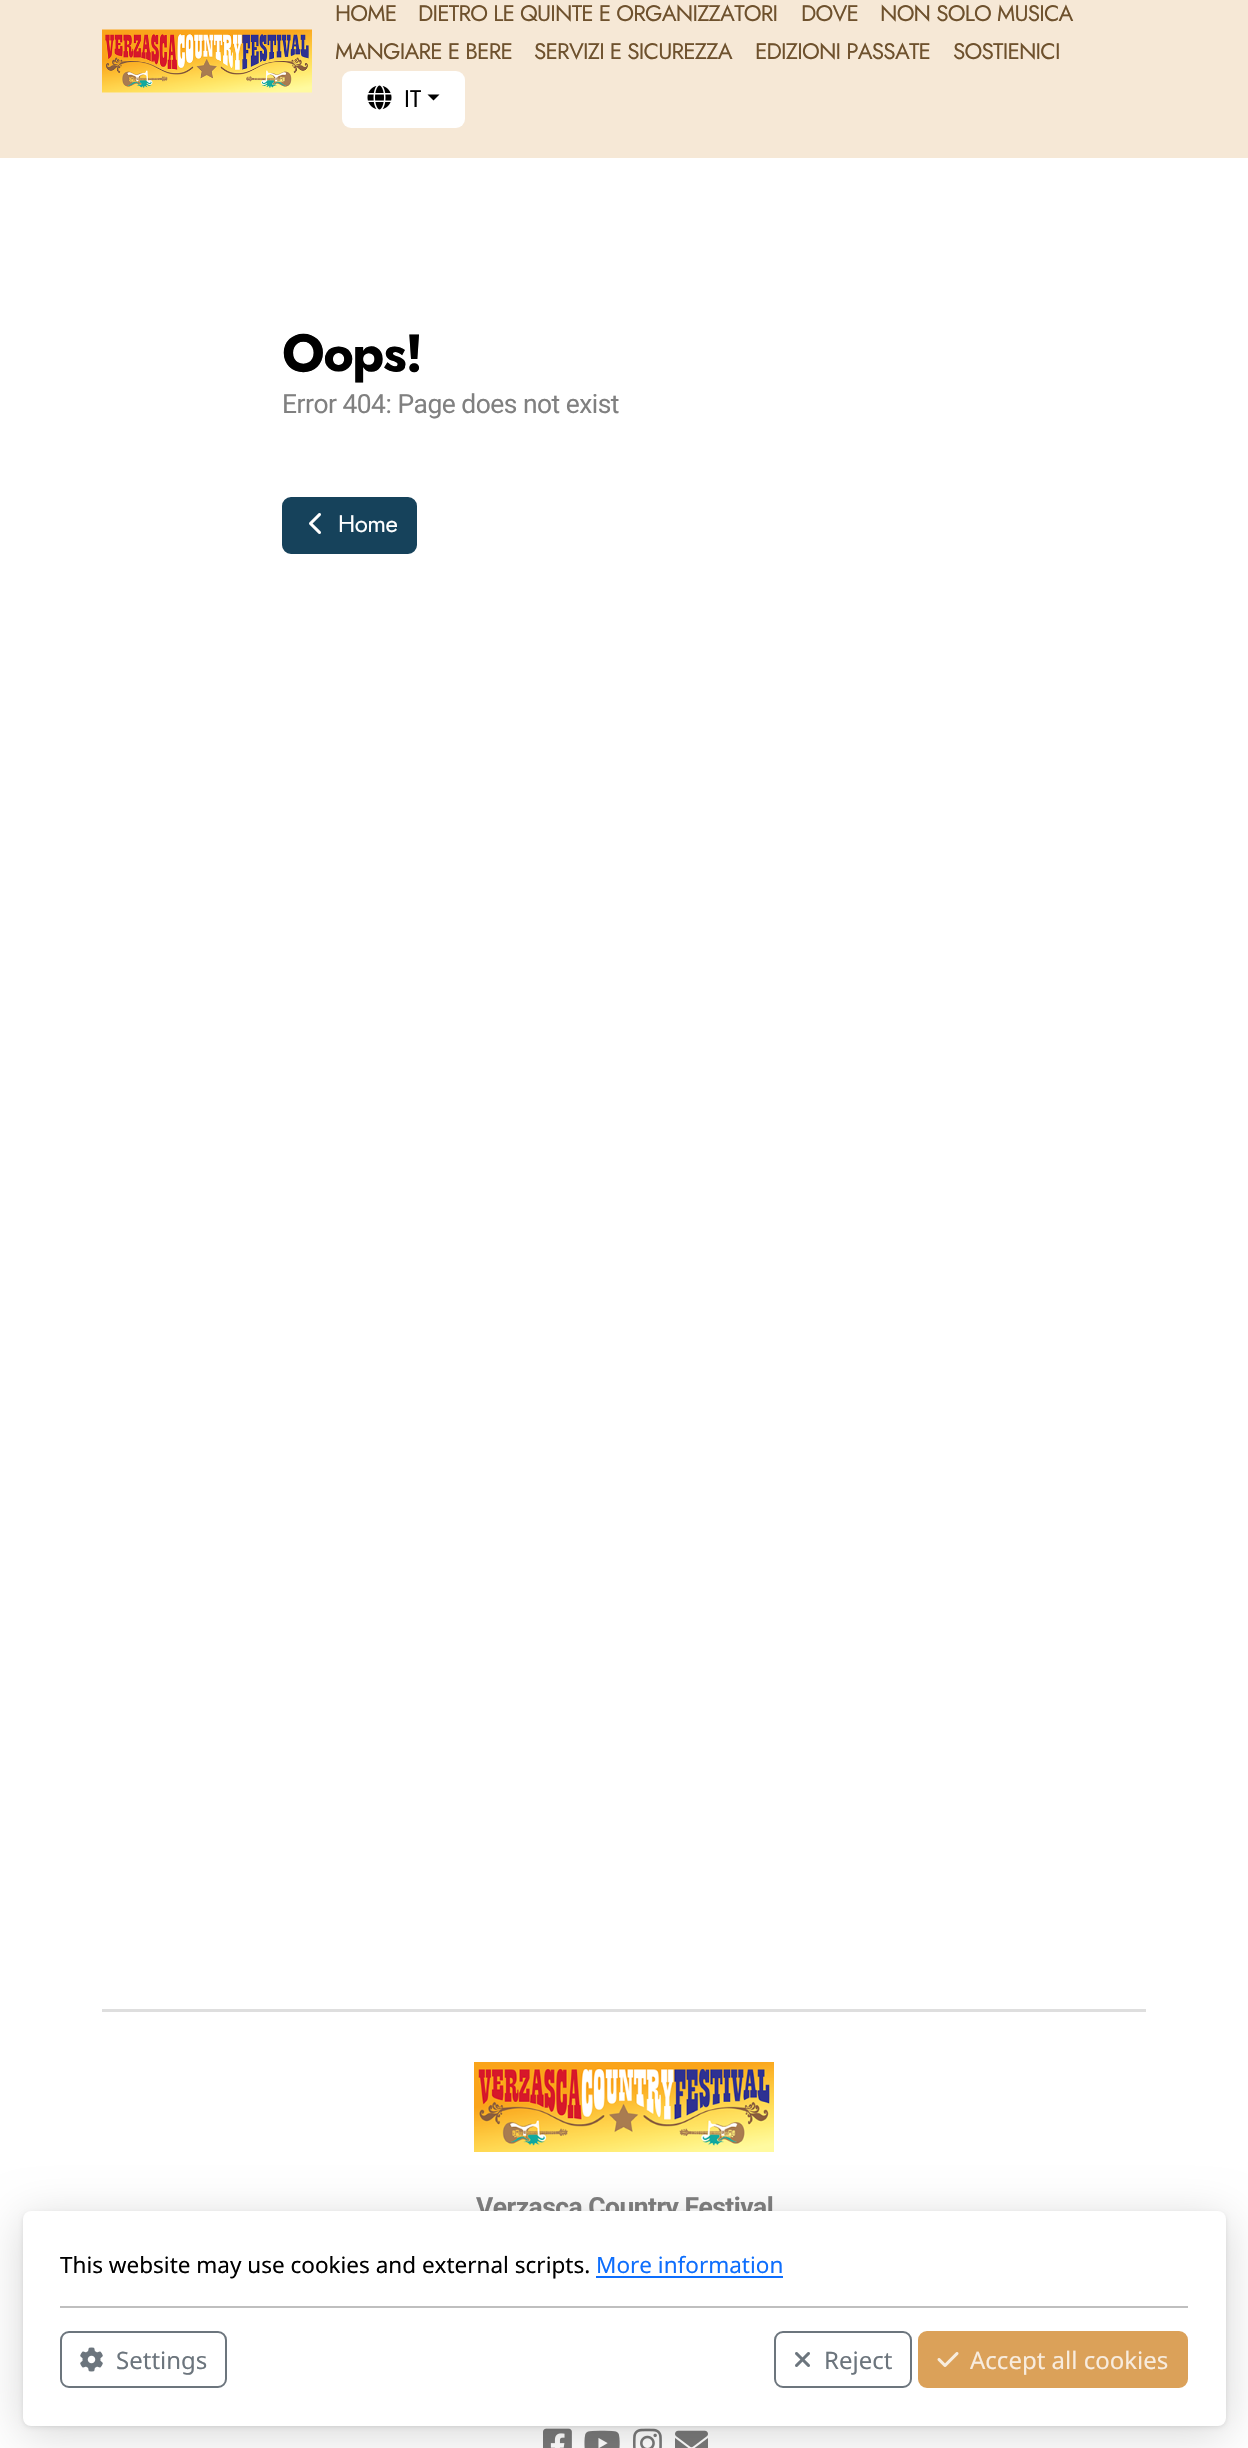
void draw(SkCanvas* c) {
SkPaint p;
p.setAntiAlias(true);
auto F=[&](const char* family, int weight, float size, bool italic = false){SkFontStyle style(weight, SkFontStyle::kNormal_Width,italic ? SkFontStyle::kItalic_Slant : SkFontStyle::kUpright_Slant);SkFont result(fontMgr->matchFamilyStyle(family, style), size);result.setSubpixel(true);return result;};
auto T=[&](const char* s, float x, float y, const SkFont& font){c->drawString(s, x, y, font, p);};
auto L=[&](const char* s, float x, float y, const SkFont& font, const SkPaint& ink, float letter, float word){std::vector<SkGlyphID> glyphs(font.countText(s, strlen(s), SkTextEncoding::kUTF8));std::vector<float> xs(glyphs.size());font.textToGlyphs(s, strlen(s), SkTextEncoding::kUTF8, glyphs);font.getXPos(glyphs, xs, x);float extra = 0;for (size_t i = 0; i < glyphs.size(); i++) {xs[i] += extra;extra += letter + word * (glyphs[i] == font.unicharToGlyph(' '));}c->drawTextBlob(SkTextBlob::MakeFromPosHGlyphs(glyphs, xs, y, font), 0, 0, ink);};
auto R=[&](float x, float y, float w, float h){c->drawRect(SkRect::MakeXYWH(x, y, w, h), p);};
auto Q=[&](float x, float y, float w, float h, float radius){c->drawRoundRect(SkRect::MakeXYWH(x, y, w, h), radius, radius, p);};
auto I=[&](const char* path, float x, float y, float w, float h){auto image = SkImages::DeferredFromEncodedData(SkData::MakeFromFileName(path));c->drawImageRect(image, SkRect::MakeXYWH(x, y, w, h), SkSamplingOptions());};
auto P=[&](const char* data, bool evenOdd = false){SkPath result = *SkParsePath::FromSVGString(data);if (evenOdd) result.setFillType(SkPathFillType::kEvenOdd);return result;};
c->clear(0xffffffff);
p.setColor(0xfff6e8d6);
R(0,0,1248,158);
I("1.png",102,29,210,64);
auto f1 = F("Jost",400,22.5);
p.setColor(0xff6e512d);
L("HOME",335,21,f1,p,-.8,0);
L("DIETRO LE QUINTE E ORGANIZZATORI",418,21,f1,p,-.8,0);
L("DOVE",801,21,f1,p,-.8,0);
L("NON SOLO MUSICA",880,21,f1,p,-.8,0);
L("MANGIARE E BERE",335,59,f1,p,-.8,0);
L("SERVIZI E SICUREZZA",534,59,f1,p,-.8,0);
L("EDIZIONI PASSATE",755,59,f1,p,-.8,0);
L("SOSTIENICI",953,59,f1,p,-.8,0);
p.setColor(0xffffffff);
Q(342,71,123,57,9);
I("2.png",367,85,25,25);
auto f2 = F("Jost",400,24);
p.setColor(0xff000000);
T("IT",404,107,f2);
c->drawPath(P("M427.5 94.5h12l-6 6z"),p);
auto f3 = F("Jost",700,52);
L("Oops!",282,371,f3,p,-1.5,0);
auto f4 = F("Roboto",400,26.4);
p.setColor(0xff808080);
L("Error 404: Page does not exist",282,413,f4,p,-.5,0);
p.setColor(0xff16425b);
c->drawRoundRect(SkRect::MakeXYWH(283,498,133,55),8,8,p);
p.setStroke(true);
p.setStrokeWidth(2);
c->drawRoundRect(SkRect::MakeXYWH(283,498,133,55),8,8,p);
I("3.png",309,513,12,21);
p.setStroke(false);
p.setColor(0xffffffff);
L("Home",338,532,f2,p,-.5,0);
p.setColor(0xffdedede);
R(102,2009,1044,3);
I("4.png",474,2062,300,90);
auto f5 = F("Roboto",700,26.4);
p.setColor(0xff808080);
L("Verzasca Country Festival",476,2216,f5,p,-.5,0);
I("5.png",543,2428,29,20);
I("6.png",584,2430,36,18);
I("7.png",633,2428,29,20);
I("8.png",675,2430,33,18);
p.setColor(0x29000000);
p.setMaskFilter(SkMaskFilter::MakeBlur(kNormal_SkBlurStyle, 22.5));
c->drawRoundRect(SkRect::MakeXYWH(23,2219,1203,214),8,8,p);
p.setMaskFilter(nullptr);
p.setColor(0x1a000000);
p.setMaskFilter(SkMaskFilter::MakeBlur(kNormal_SkBlurStyle, 2));
c->drawRoundRect(SkRect::MakeXYWH(23,2213,1203,214),8,8,p);
p.setMaskFilter(nullptr);
p.setColor(0xffffffff);
Q(23,2211,1203,215,8);
auto f6 = F("Noto Sans",400,22.5);
p.setColor(0xff000000);
T("This website may use cookies and external scripts.",60,2273,f6);
p.setColor(0xff0d6efd);
T("More information",596,2273,f6);
R(596,2276,187,2);
p.setColor(0xffbfbfbf);
R(60,2306,1128,2);
p.setStroke(true);
p.setColor(0xff6c757d);
c->drawRoundRect(SkRect::MakeXYWH(61,2332,165,55),8,8,p);
I("9.png",80,2347,23,25);
auto f7 = F("Noto Sans",400,24);
p.setStroke(false);
T("Settings",116,2369,f7);
p.setStroke(true);
c->drawRoundRect(SkRect::MakeXYWH(775,2332,136,55),8,8,p);
I("10.png",795,2352,15,15);
p.setStroke(false);
T("Reject",824,2369,f7);
p.setColor(0xffdba159);
c->drawRoundRect(SkRect::MakeXYWH(919,2332,268,55),8,8,p);
p.setStroke(true);
c->drawRoundRect(SkRect::MakeXYWH(919,2332,268,55),8,8,p);
I("11.png",937,2352,22,15);
p.setStroke(false);
p.setColor(0xfff8ecde);
T("Accept all cookies",970,2369,f7);
}
